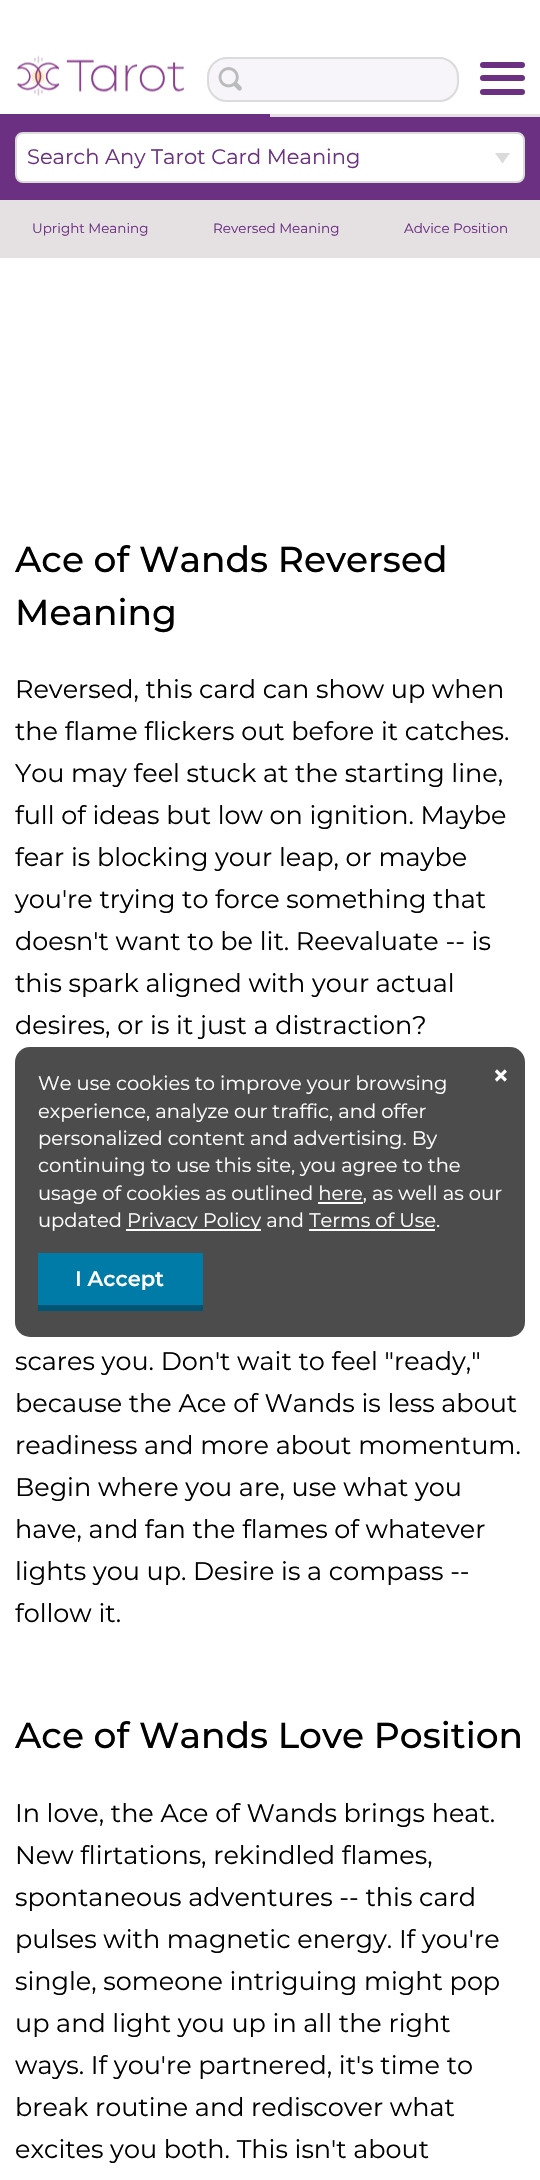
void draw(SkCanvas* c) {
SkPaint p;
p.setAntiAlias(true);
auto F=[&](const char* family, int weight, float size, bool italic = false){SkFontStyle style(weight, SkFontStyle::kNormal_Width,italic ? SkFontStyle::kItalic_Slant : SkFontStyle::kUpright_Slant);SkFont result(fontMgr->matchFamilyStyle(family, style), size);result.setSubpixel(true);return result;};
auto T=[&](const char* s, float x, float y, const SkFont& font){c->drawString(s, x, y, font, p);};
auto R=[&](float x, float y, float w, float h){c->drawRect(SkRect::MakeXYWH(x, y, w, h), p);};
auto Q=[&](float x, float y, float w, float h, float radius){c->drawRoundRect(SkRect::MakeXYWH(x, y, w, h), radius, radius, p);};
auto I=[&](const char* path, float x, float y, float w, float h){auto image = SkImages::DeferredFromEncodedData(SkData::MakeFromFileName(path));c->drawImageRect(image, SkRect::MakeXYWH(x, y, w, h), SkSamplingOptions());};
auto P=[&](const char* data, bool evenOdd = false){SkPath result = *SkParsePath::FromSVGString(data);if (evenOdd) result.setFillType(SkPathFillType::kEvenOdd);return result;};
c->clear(0xffffffff);
I("1.png",17,55,167,41);
p.setColor(0xfff7f5fa);
Q(207,57,252,45,20);
I("2.png",218,67,24,24);
p.setStroke(true);
p.setStrokeWidth(2);
p.setColor(0xffdbdbdb);
c->drawRoundRect(SkRect::MakeXYWH(208,58,250,43),19,19,p);
p.setStroke(false);
p.setColor(0xff6c3082);
Q(480,62,45,6,3);
Q(480,75,45,6,3);
Q(480,89,45,6,3);
p.setColor(0xffe5e0e1);
R(270,114,270,3);
p.setColor(0xff6c3082);
R(0,114,270,3);
R(0,117,540,83);
p.setColor(0xffffffff);
c->drawRoundRect(SkRect::MakeXYWH(16,133,508,49),7,7,p);
p.setStroke(true);
p.setColor(0xffdbdbdb);
c->drawRoundRect(SkRect::MakeXYWH(16,133,508,49),7,7,p);
auto f1 = F("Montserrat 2",100,21);
p.setStroke(false);
p.setColor(0xff6c3082);
T("Search Any Tarot Card Meaning",27,164,f1);
p.setColor(0xffdbdbdb);
c->drawPath(P("M495 153h15l-7.5 10.5z"),p);
p.setColor(0xffe5e0e1);
R(0,200,540,58);
auto f2 = F("Montserrat 2",100,13.5);
p.setColor(0xff6c3082);
T("Upright Meaning",32,233,f2);
T("Reversed Meaning",213,233,f2);
T("Advice Position",404,233,f2);
auto f3 = F("Montserrat",100,36);
p.setColor(0xff000000);
T("Ace of Wands Reversed",15,572,f3);
T("Meaning",15,625,f3);
auto f4 = F("Montserrat 2",100,25.5);
T("Reversed, this card can show up when",15,698,f4);
T("the flame flickers out before it catches.",15,740,f4);
T("You may feel stuck at the starting line,",15,782,f4);
T("full of ideas but low on ignition. Maybe",15,824,f4);
T("fear is blocking your leap, or maybe",15,866,f4);
T("you're trying to force something that",15,908,f4);
T("doesn't want to be lit. Reevaluate -- is",15,950,f4);
T("this spark aligned with your actual",15,992,f4);
T("desires, or is it just a distraction?",15,1034,f4);
T("scares you. Don't wait to feel \"ready,\"",15,1370,f4);
T("because the Ace of Wands is less about",15,1412,f4);
T("readiness and more about momentum.",15,1454,f4);
T("Begin where you are, use what you",15,1496,f4);
T("have, and fan the flames of whatever",15,1538,f4);
T("lights you up. Desire is a compass --",15,1580,f4);
T("follow it.",15,1622,f4);
T("Ace of Wands Love Position",15,1748,f3);
T("In love, the Ace of Wands brings heat.",15,1822,f4);
T("New flirtations, rekindled flames,",15,1864,f4);
T("spontaneous adventures -- this card",15,1906,f4);
T("pulses with magnetic energy. If you're",15,1948,f4);
T("single, someone intriguing might pop",15,1990,f4);
T("up and light you up in all the right",15,2032,f4);
T("ways. If you're partnered, it's time to",15,2074,f4);
T("break routine and rediscover what",15,2116,f4);
T("excites you both. This isn't about",15,2158,f4);
p.setColor(0xb3000000);
Q(15,1047,510,290,15);
auto f5 = F("Montserrat 2",100,19.5);
p.setColor(0xffffffff);
T("We use cookies to improve your browsing",38,1090,f5);
T("experience, analyze our traffic, and offer",38,1118,f5);
T("personalized content and advertising. By",38,1145,f5);
T("continuing to use this site, you agree to the",38,1172,f5);
T("usage of cookies as outlined here, as well as our",38,1200,f5);
R(318,1202,45,2);
T("updated",38,1227,f5);
R(126,1229,135,2);
T("Privacy Policy and Terms of Use.",127,1227,f5);
R(309,1229,126,2);
auto f6 = F("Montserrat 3",100,30);
T("×",492,1086,f6);
p.setColor(0xff007ba7);
R(38,1253,165,52);
p.setColor(0xff005574);
R(38,1305,165,6);
auto f7 = F("Montserrat 3",100,21);
p.setColor(0xffffffff);
T("I Accept",75,1286,f7);
}
